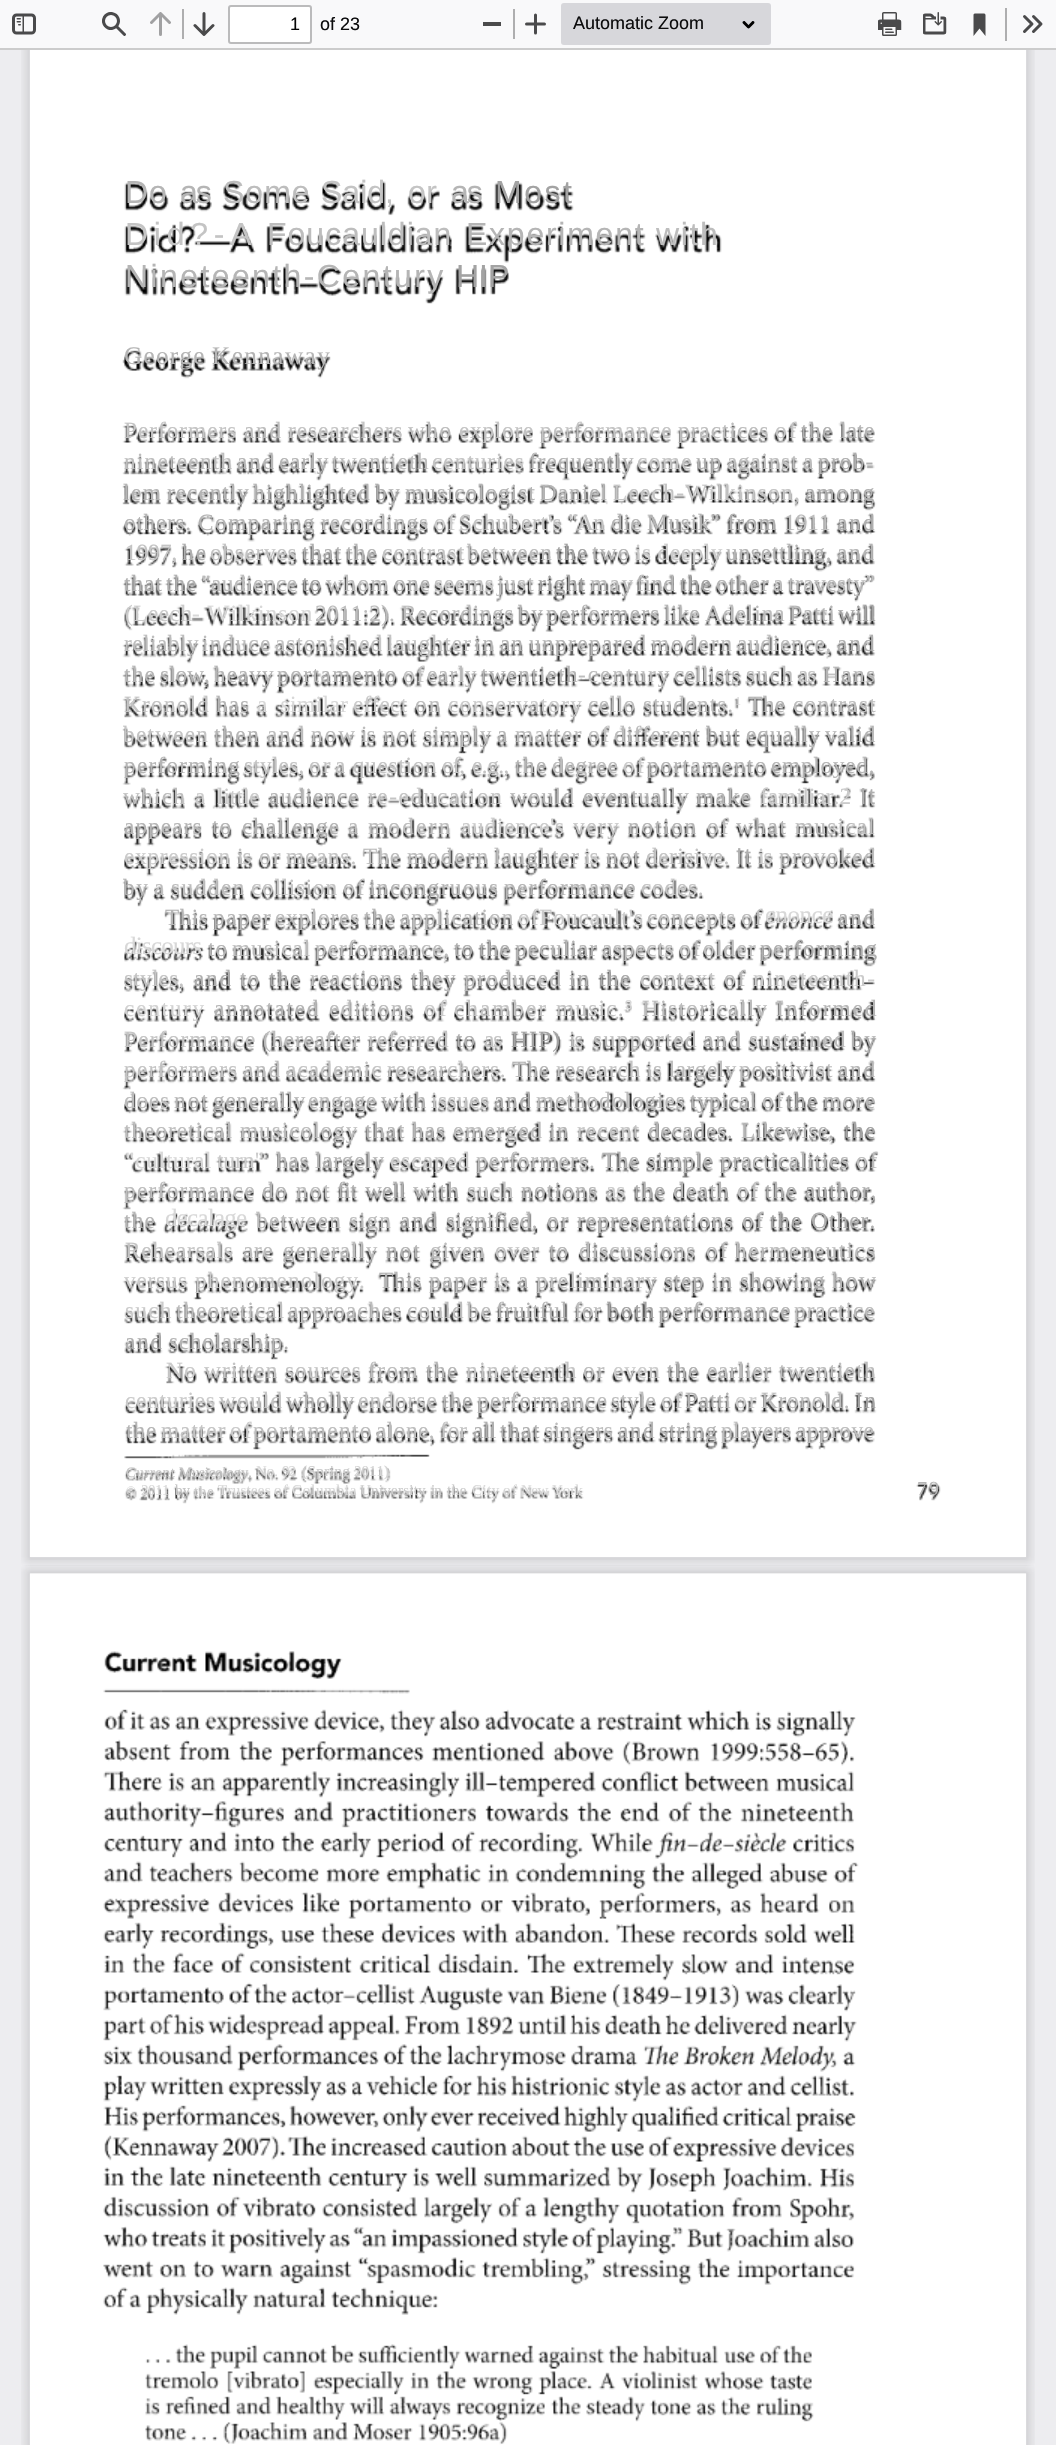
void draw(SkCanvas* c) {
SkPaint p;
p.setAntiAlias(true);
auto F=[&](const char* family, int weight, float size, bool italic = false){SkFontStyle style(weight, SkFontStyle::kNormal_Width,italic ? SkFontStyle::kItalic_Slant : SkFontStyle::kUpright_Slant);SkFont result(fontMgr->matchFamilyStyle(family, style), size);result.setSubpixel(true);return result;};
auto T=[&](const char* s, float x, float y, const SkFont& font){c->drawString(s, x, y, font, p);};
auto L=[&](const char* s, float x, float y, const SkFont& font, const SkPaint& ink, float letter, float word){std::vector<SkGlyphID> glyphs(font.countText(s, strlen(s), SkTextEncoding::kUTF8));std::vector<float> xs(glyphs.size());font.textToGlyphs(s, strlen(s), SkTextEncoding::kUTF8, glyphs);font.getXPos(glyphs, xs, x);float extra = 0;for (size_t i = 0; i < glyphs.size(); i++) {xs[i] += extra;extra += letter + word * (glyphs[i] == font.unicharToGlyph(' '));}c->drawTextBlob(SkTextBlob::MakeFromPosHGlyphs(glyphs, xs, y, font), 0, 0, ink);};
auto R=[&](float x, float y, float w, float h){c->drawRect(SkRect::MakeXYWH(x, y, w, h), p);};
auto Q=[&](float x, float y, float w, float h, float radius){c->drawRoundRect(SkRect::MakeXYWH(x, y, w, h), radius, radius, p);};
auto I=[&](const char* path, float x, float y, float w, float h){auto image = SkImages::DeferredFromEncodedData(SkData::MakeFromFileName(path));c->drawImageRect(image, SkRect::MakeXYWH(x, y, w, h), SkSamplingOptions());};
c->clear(0xffededf0);
p.setColor(0xffcccccc);
R(0,48,1056,2);
p.setColor(0xfff9f9fa);
R(0,0,1056,48);
I("1.png",12,13,24,22);
I("2.png",102,12,24,24);
I("3.png",150,12,21,24);
p.setColor(0xffaeaeaf);
R(182,9,2,30);
I("4.png",193,12,22,24);
p.setColor(0xffffffff);
c->drawRoundRect(SkRect::MakeXYWH(229,6,82,37),2,2,p);
p.setStroke(true);
p.setStrokeWidth(2);
p.setColor(0xffbbbbbc);
c->drawRoundRect(SkRect::MakeXYWH(229,6,82,37),2,2,p);
auto f1 = F("Liberation Sans",400,18);
p.setStroke(false);
p.setColor(0xff060606);
T("1",290,30,f1);
p.setColor(0xff0c0c0d);
T("of 23",320,30,f1);
p.setColor(0xff4b4b4b);
R(483,22,18,4);
p.setColor(0xffaeaeaf);
R(513,9,2,30);
I("5.png",525,13,21,22);
p.setColor(0xffd7d7db);
Q(561,3,210,42,3);
p.setColor(0xff0c0c0d);
T("Automatic Zoom",573,29,f1);
I("6.png",742,21,13,8);
I("7.png",878,12,24,24);
I("8.png",923,12,24,23);
I("9.png",973,13,13,23);
p.setColor(0xffaeaeaf);
R(1005,8,2,33);
I("10.png",1023,15,20,18);
I("11.png",21,50,1014,1516);
I("12.png",30,50,996,1507);
auto f2 = F("Liberation Sans",400,32);
p.setColor(0xffb5b5b5);
L("Do",125,203,f2,p,1,0);
L("as",180,203,f2,p,-2,0);
p.setColor(0xffbdbdbd);
L("Some",223,203,f2,p,1,0);
p.setColor(0xffc4c4c4);
T("Said,",321,203,f2);
L("or",408,203,f2,p,.5,0);
p.setColor(0xffb5b5b5);
L("as",451,203,f2,p,-2,0);
p.setColor(0xffa3a3a3);
L("Most",495,203,f2,p,2.5,0);
p.setColor(0xffc4c4c4);
L("Did?-A",125,245,f2,p,5.75,0);
p.setColor(0xffbdbdbd);
L("Foucauldian",267,245,f2,p,1,0);
p.setColor(0xffb5b5b5);
L("Experiment",466,245,f2,p,1.75,0);
p.setColor(0xffbdbdbd);
L("with",656,245,f2,p,1.6,0);
p.setColor(0xffb5b5b5);
L("Nineteenth-Century",125,287,f2,p,2.4,0);
p.setColor(0xffa3a3a3);
T("HIP",456,287,f2);
auto f3 = F("Liberation Serif",400,25.25);
p.setColor(0xffb5b5b5);
L("George",124,364,f3,p,1.25,0);
L("Kennaway",212,364,f3,p,1.4,0);
auto f4 = F("Liberation Serif",400,23.25);
p.setColor(0xffc4c4c4);
L("Performers",124,438,f4,p,1,0);
p.setColor(0xffbdbdbd);
L("and",244,438,f4,p,1.75,0);
p.setColor(0xffc4c4c4);
L("researchers",288,438,f4,p,1,0);
p.setColor(0xffbdbdbd);
L("who",408,438,f4,p,1.5,0);
p.setColor(0xffc4c4c4);
L("explore",459,438,f4,p,.75,0);
L("performance",540,438,f4,p,1.4,0);
p.setColor(0xffbdbdbd);
L("practices",678,438,f4,p,1,0);
p.setColor(0xffc4c4c4);
L("of",775,438,f4,p,2,0);
p.setColor(0xffafafaf);
L("the",801,438,f4,p,1.5,0);
p.setColor(0xffb5b5b5);
L("late",840,438,f4,p,.25,0);
p.setColor(0xffbdbdbd);
L("nineteenth",124,469,f4,p,1.25,0);
p.setColor(0xffb5b5b5);
L("and",237,469,f4,p,1.75,0);
L("early",279,469,f4,p,.75,0);
p.setColor(0xffbdbdbd);
L("twentieth",332,469,f4,p,1.25,0);
p.setColor(0xffc4c4c4);
L("centuries",432,469,f4,p,1,0);
p.setColor(0xffb5b5b5);
L("frequently",529,469,f4,p,1,0);
p.setColor(0xffc4c4c4);
L("come",637,469,f4,p,1.4,0);
p.setColor(0xffafafaf);
L("up",696,469,f4,p,1.75,0);
p.setColor(0xffbdbdbd);
L("against",727,469,f4,p,.75,0);
T("a",803,469,f4);
p.setColor(0xffafafaf);
L("prob-",818,469,f4,p,1.25,0);
p.setColor(0xffb5b5b5);
L("lem",123,500,f4,p,1.5,0);
L("recently",167,500,f4,p,1,0);
L("highlighted",253,500,f4,p,1.1,0);
p.setColor(0xffafafaf);
L("by",375,500,f4,p,1.5,0);
p.setColor(0xffb5b5b5);
L("musicologist",405,500,f4,p,1,0);
L("Daniel",540,500,f4,p,1,0);
p.setColor(0xffc4c4c4);
L("Leech-Wilkinson,",613,500,f4,p,1.3,0);
p.setColor(0xffafafaf);
L("among",805,500,f4,p,1.5,0);
p.setColor(0xffb5b5b5);
L("others.",124,530,f4,p,.75,0);
L("Comparing",198,530,f4,p,1.5,0);
p.setColor(0xffbdbdbd);
L("recordings",321,530,f4,p,1,0);
p.setColor(0xffcbcbcb);
L("of",434,530,f4,p,2,0);
p.setColor(0xffc4c4c4);
L("Schubert's",459,530,f4,p,.75,0);
L("\"An",568,530,f4,p,-.5,0);
p.setColor(0xffb5b5b5);
L("die",611,530,f4,p,.75,0);
L("Musik\"",647,530,f4,p,.75,0);
p.setColor(0xffafafaf);
L("from",727,530,f4,p,1.5,0);
p.setColor(0xffbdbdbd);
T("1911",784,530,f4);
p.setColor(0xffafafaf);
L("and",837,530,f4,p,2,0);
p.setColor(0xffc4c4c4);
T("1997,",125,560,f4);
p.setColor(0xffafafaf);
L("he",182,560,f4,p,2,0);
p.setColor(0xffc4c4c4);
L("observes",210,560,f4,p,.75,0);
p.setColor(0xffafafaf);
L("that",302,560,f4,p,1.5,0);
p.setColor(0xffb5b5b5);
L("the",346,560,f4,p,1.25,0);
p.setColor(0xffc4c4c4);
L("contrast",382,560,f4,p,1.25,0);
p.setColor(0xffbdbdbd);
L("between",467,560,f4,p,1.25,0);
p.setColor(0xffa3a3a3);
L("the",556,560,f4,p,1.5,0);
p.setColor(0xffb5b5b5);
L("two",592,560,f4,p,1.25,0);
p.setColor(0xffcbcbcb);
L("is deeply",635,560,f4,p,.5,0);
p.setColor(0xffb5b5b5);
L("unsettling,",726,560,f4,p,.8,0);
L("and",837,560,f4,p,1.75,0);
p.setColor(0xffafafaf);
L("that",124,591,f4,p,1,0);
L("the",166,591,f4,p,1,0);
p.setColor(0xffbdbdbd);
L("\"audience",201,591,f4,p,.5,0);
p.setColor(0xffa3a3a3);
L("to",302,591,f4,p,1,0);
p.setColor(0xffbdbdbd);
L("whom",326,591,f4,p,1.5,0);
p.setColor(0xffb5b5b5);
L("one",394,591,f4,p,1.25,0);
p.setColor(0xffc4c4c4);
L("seems",434,591,f4,p,.75,0);
p.setColor(0xffbdbdbd);
L("just",497,591,f4,p,1,0);
p.setColor(0xffa3a3a3);
L("right",538,591,f4,p,.75,0);
p.setColor(0xffbdbdbd);
L("may",590,591,f4,p,1.5,0);
p.setColor(0xffb5b5b5);
L("find",636,591,f4,p,.5,0);
p.setColor(0xffa3a3a3);
L("the",680,591,f4,p,1.25,0);
p.setColor(0xffb5b5b5);
L("other",716,591,f4,p,1.25,0);
p.setColor(0xffbdbdbd);
T("a",773,591,f4);
L("travesty\"",788,591,f4,p,.5,0);
p.setColor(0xffcbcbcb);
L("(Leech",125,621,f4,p,.5,0);
p.setColor(0xffd8d8d8);
L("- Wilkinson",192,621,f4,p,1,0);
p.setColor(0xffbdbdbd);
L("2011:2).",315,621,f4,p,.25,0);
L("Recordings",401,621,f4,p,.75,0);
p.setColor(0xffb5b5b5);
L("by",518,621,f4,p,1.5,0);
L("performers",546,621,f4,p,1.25,0);
L("like",664,621,f4,p,.25,0);
p.setColor(0xffbdbdbd);
L("Adelina",705,621,f4,p,1,0);
p.setColor(0xffb5b5b5);
L("Patti",789,621,f4,p,.75,0);
p.setColor(0xffa3a3a3);
L("will",838,621,f4,p,.5,0);
p.setColor(0xffbdbdbd);
L("reliably",124,651,f4,p,.5,0);
L("induce",202,651,f4,p,1.25,0);
p.setColor(0xffc4c4c4);
L("astonished",275,651,f4,p,1,0);
L("laughter",387,651,f4,p,1.1,0);
p.setColor(0xffb5b5b5);
L("in",474,651,f4,p,2,0);
L("an",500,651,f4,p,1,0);
L("unprepared",529,651,f4,p,1.4,0);
p.setColor(0xffbdbdbd);
L("modern",651,651,f4,p,2,0);
L("audience,",737,651,f4,p,.75,0);
p.setColor(0xffafafaf);
L("and",837,651,f4,p,2,0);
p.setColor(0xffb5b5b5);
L("the",124,682,f4,p,1.25,0);
T("slow,",160,682,f4);
L("heavy",214,682,f4,p,1,0);
L("portamento",277,682,f4,p,1.5,0);
p.setColor(0xffc4c4c4);
L("of",403,682,f4,p,2,0);
p.setColor(0xffbdbdbd);
L("early",427,682,f4,p,.75,0);
p.setColor(0xffb5b5b5);
L("twentieth",481,682,f4,p,1.25,0);
p.setColor(0xffbdbdbd);
L("-century",578,682,f4,p,2,0);
L("cellists",674,682,f4,p,.25,0);
L("such",746,682,f4,p,1.5,0);
p.setColor(0xffc4c4c4);
L("as",798,682,f4,p,-1,0);
p.setColor(0xffb5b5b5);
L("Hans",823,682,f4,p,1.5,0);
p.setColor(0xffc4c4c4);
L("Kronold",124,712,f4,p,1.25,0);
p.setColor(0xffb5b5b5);
L("has",216,712,f4,p,1,0);
p.setColor(0xffd8d8d8);
L("a  similar",257,712,f4,p,.5,0);
p.setColor(0xffcbcbcb);
L("effect",353,712,f4,p,.25,0);
p.setColor(0xffbdbdbd);
L("on",415,712,f4,p,2,0);
p.setColor(0xffcbcbcb);
L("conservatory",448,712,f4,p,1.25,0);
p.setColor(0xffbdbdbd);
L("cello",588,712,f4,p,.5,0);
L("students.",643,712,f4,p,1,0);
auto f5 = F("Liberation Serif",400,12);
p.setColor(0xffd8d8d8);
T("1",735,705,f5);
p.setColor(0xffb5b5b5);
L("The",748,712,f4,p,.5,0);
p.setColor(0xffbdbdbd);
L("contrast",793,712,f4,p,1.3,0);
p.setColor(0xffc4c4c4);
L("between",123,742,f4,p,1.25,0);
p.setColor(0xffb5b5b5);
L("then",214,742,f4,p,1.6,0);
p.setColor(0xffbdbdbd);
L("and",267,742,f4,p,1.75,0);
L("now",311,742,f4,p,2,0);
L("is",361,742,f4,p,-1,0);
L("not",383,742,f4,p,2,0);
L("simply",423,742,f4,p,1,0);
p.setColor(0xffb5b5b5);
T("a",497,742,f4);
p.setColor(0xffbdbdbd);
L("matter",515,742,f4,p,1.4,0);
p.setColor(0xffc4c4c4);
L("of",588,742,f4,p,2,0);
p.setColor(0xffbdbdbd);
L("different",614,742,f4,p,.75,0);
p.setColor(0xffafafaf);
L("but",706,742,f4,p,2,0);
p.setColor(0xffb5b5b5);
L("equally",746,742,f4,p,1,0);
L("valid",825,742,f4,p,1,0);
L("performing",124,773,f4,p,1.25,0);
p.setColor(0xffc4c4c4);
L("styles,",244,773,f4,p,.25,0);
L("or",309,773,f4,p,2,0);
L("a question",335,773,f4,p,.75,0);
L("of,",442,773,f4,p,-1,0);
L("e.g.,",472,773,f4,p,-.5,0);
p.setColor(0xffb5b5b5);
L("the",515,773,f4,p,1.5,0);
p.setColor(0xffbdbdbd);
L("degree",552,773,f4,p,.75,0);
p.setColor(0xffcbcbcb);
L("of",623,773,f4,p,2,0);
p.setColor(0xffb5b5b5);
L("portamento",647,773,f4,p,1.5,0);
L("employed,",771,773,f4,p,.75,0);
p.setColor(0xffbdbdbd);
L("which",123,804,f4,p,1.25,0);
p.setColor(0xffcbcbcb);
T("a  little",195,804,f4);
p.setColor(0xffb5b5b5);
L("audience",269,804,f4,p,1,0);
p.setColor(0xffc4c4c4);
L("re-education",368,804,f4,p,1.6,0);
p.setColor(0xffb5b5b5);
L("would",510,804,f4,p,1.5,0);
L("eventually",583,804,f4,p,1,0);
L("make",696,804,f4,p,1.5,0);
p.setColor(0xffcbcbcb);
T("familiar.2",760,804,f4);
auto f6 = F("Liberation Sans",400,23);
p.setColor(0xffafafaf);
L("It",860,804,f6,p,2,0);
p.setColor(0xffb5b5b5);
L("appears",124,834,f4,p,1.1,0);
L("to",212,834,f4,p,1,0);
L("challenge",242,834,f4,p,1,0);
p.setColor(0xffbdbdbd);
T("a",348,834,f4);
L("modern",368,834,f4,p,2.25,0);
p.setColor(0xffcbcbcb);
L("audience's",461,834,f4,p,.8,0);
p.setColor(0xffc4c4c4);
L("very",573,834,f4,p,1.5,0);
p.setColor(0xffb5b5b5);
L("notion",628,834,f4,p,1.75,0);
p.setColor(0xffbdbdbd);
L("of",707,834,f4,p,2,0);
p.setColor(0xffb5b5b5);
L("what",736,834,f4,p,1.6,0);
p.setColor(0xffbdbdbd);
L("musical",795,834,f4,p,1.25,0);
p.setColor(0xffcbcbcb);
L("expression",124,864,f4,p,.75,0);
p.setColor(0xffc4c4c4);
L("is",237,864,f4,p,-1,0);
L("or",259,864,f4,p,2,0);
L("means.",286,864,f4,p,1,0);
p.setColor(0xffbdbdbd);
L("The",363,864,f4,p,.5,0);
L("modern",407,864,f4,p,2,0);
L("laughter",494,864,f4,p,1.25,0);
p.setColor(0xffc4c4c4);
L("is",584,864,f4,p,-1,0);
p.setColor(0xffb5b5b5);
L("not",606,864,f4,p,2,0);
p.setColor(0xffc4c4c4);
L("derisive.",646,864,f4,p,.5,0);
p.setColor(0xffafafaf);
L("It",736,864,f6,p,2,0);
p.setColor(0xffcbcbcb);
L("is",758,864,f4,p,-1,0);
p.setColor(0xffbdbdbd);
L("provoked",779,864,f4,p,1.25,0);
p.setColor(0xffb5b5b5);
L("by",123,895,f4,p,1.5,0);
p.setColor(0xffbdbdbd);
T("a",154,895,f4);
L("sudden",171,895,f4,p,1.5,0);
p.setColor(0xffc4c4c4);
L("collision",251,895,f4,p,.75,0);
p.setColor(0xffbdbdbd);
L("of",343,895,f4,p,2,0);
p.setColor(0xffb5b5b5);
L("incongruous",369,895,f4,p,1.4,0);
L("performance",504,895,f4,p,1.4,0);
p.setColor(0xffc4c4c4);
L("codes.",641,895,f4,p,.75,0);
p.setColor(0xffb5b5b5);
L("This",165,925,f4,p,.5,0);
L("paper",213,925,f4,p,1.5,0);
p.setColor(0xffbdbdbd);
L("explores",275,925,f4,p,.75,0);
p.setColor(0xffb5b5b5);
L("the",364,925,f4,p,1.25,0);
p.setColor(0xffbdbdbd);
L("application",400,925,f4,p,1,0);
p.setColor(0xffcbcbcb);
L("ofFoucault's",518,925,f4,p,1,0);
p.setColor(0xffbdbdbd);
L("concepts",647,925,f4,p,1,0);
L("of",741,925,f4,p,2,0);
auto f7 = F("Liberation Serif",400,25);
p.setColor(0xffd8d8d8);
L("enonce",765,923,f7,p,-.5,0);
p.setColor(0xffafafaf);
L("and",838,925,f4,p,1.75,0);
p.setColor(0xffd8d8d8);
L("discours",124,954,f7,p,-.75,0);
p.setColor(0xffb5b5b5);
L("to",208,956,f4,p,1,0);
p.setColor(0xffbdbdbd);
L("musical",232,956,f4,p,1,0);
L("performance,",315,956,f4,p,1,0);
p.setColor(0xffafafaf);
L("to",454,956,f4,p,1,0);
L("the",479,956,f4,p,1.25,0);
p.setColor(0xffb5b5b5);
L("peculiar",515,956,f4,p,1,0);
p.setColor(0xffbdbdbd);
L("aspects",602,956,f4,p,.75,0);
L("of",679,956,f4,p,2,0);
L("older",703,956,f4,p,1.25,0);
p.setColor(0xffafafaf);
L("performing",760,956,f4,p,1.4,0);
p.setColor(0xffc4c4c4);
L("styles,",124,986,f4,p,.25,0);
p.setColor(0xffafafaf);
L("and",194,986,f4,p,1.75,0);
p.setColor(0xffb5b5b5);
L("to",240,986,f4,p,1,0);
p.setColor(0xffa9a9a9);
L("the",269,986,f4,p,1.5,0);
p.setColor(0xffbdbdbd);
L("reactions",310,986,f4,p,1,0);
p.setColor(0xffb5b5b5);
L("they",411,986,f4,p,1.5,0);
p.setColor(0xffbdbdbd);
L("produced",464,986,f4,p,1.5,0);
p.setColor(0xffafafaf);
L("in",569,986,f4,p,2,0);
p.setColor(0xffa9a9a9);
L("the",599,986,f4,p,1.5,0);
p.setColor(0xffc4c4c4);
L("context",640,986,f4,p,1.1,0);
p.setColor(0xffbdbdbd);
L("of",724,986,f4,p,2,0);
p.setColor(0xffcbcbcb);
L("nineteenth-",753,986,f4,p,1.75,0);
p.setColor(0xffd2d2d2);
L("century",124,1016,f4,p,1.75,0);
p.setColor(0xffb5b5b5);
L("annotated",214,1016,f4,p,1.75,0);
p.setColor(0xffbdbdbd);
L("editions",329,1016,f4,p,1.5,0);
p.setColor(0xffcbcbcb);
L("of",424,1016,f4,p,3,0);
p.setColor(0xffc4c4c4);
L("chamber",454,1016,f4,p,2,0);
L("music.",556,1016,f4,p,1.25,0);
auto f8 = F("Liberation Sans",400,13);
p.setColor(0xffd8d8d8);
T("3",625,1009,f8);
p.setColor(0xffbdbdbd);
L("Historically",642,1016,f4,p,1.4,0);
p.setColor(0xffb5b5b5);
L("Informed",776,1016,f4,p,2,0);
p.setColor(0xffc4c4c4);
L("Performance",124,1047,f4,p,1.25,0);
p.setColor(0xffbdbdbd);
L("(hereafter",263,1047,f4,p,.75,0);
p.setColor(0xffc4c4c4);
L("referred",368,1047,f4,p,1,0);
p.setColor(0xffafafaf);
L("to",456,1047,f4,p,1,0);
p.setColor(0xffc4c4c4);
L("as",484,1047,f4,p,-1,0);
p.setColor(0xffa3a3a3);
L("HIP)",511,1047,f4,p,1.3,0);
p.setColor(0xffbdbdbd);
L("is",569,1047,f4,p,-1,0);
L("supported",593,1047,f4,p,1.5,0);
p.setColor(0xffb5b5b5);
L("and",703,1047,f4,p,2,0);
p.setColor(0xffbdbdbd);
L("sustained",749,1047,f4,p,1.25,0);
p.setColor(0xffafafaf);
L("by",851,1047,f4,p,1.5,0);
p.setColor(0xffc4c4c4);
L("performers",124,1077,f4,p,1.25,0);
p.setColor(0xffbdbdbd);
L("and",243,1077,f4,p,1.75,0);
p.setColor(0xffc4c4c4);
L("academic",286,1077,f4,p,1.1,0);
L("researchers.",387,1077,f4,p,.75,0);
p.setColor(0xffb5b5b5);
L("The",512,1077,f4,p,.5,0);
p.setColor(0xffc4c4c4);
L("research",556,1077,f4,p,1,0);
p.setColor(0xffbdbdbd);
L("is largely",646,1077,f4,p,.5,0);
L("positivist",739,1077,f4,p,.9,0);
p.setColor(0xffb5b5b5);
L("and",838,1077,f4,p,1.75,0);
p.setColor(0xffbdbdbd);
L("does",124,1108,f4,p,.8,0);
p.setColor(0xffb5b5b5);
L("not",174,1108,f4,p,2,0);
L("generally",213,1108,f4,p,.75,0);
p.setColor(0xffbdbdbd);
L("engage",308,1108,f4,p,.5,0);
p.setColor(0xffb5b5b5);
L("with",381,1108,f4,p,1.25,0);
p.setColor(0xffc4c4c4);
L("issues",431,1108,f4,p,.5,0);
p.setColor(0xffafafaf);
L("and",494,1108,f4,p,1.75,0);
p.setColor(0xffbdbdbd);
L("methodologies",536,1108,f4,p,1,0);
p.setColor(0xffb5b5b5);
L("typical",690,1108,f4,p,.5,0);
p.setColor(0xffbdbdbd);
L("of",762,1108,f4,p,2,0);
p.setColor(0xffa3a3a3);
L("the",786,1108,f4,p,1.5,0);
p.setColor(0xffb5b5b5);
L("more",823,1108,f4,p,1.5,0);
p.setColor(0xffbdbdbd);
L("theoretical",124,1138,f4,p,1,0);
L("musicology",240,1138,f4,p,1,0);
p.setColor(0xffb5b5b5);
L("that",365,1138,f4,p,1.5,0);
L("has",412,1138,f4,p,1,0);
p.setColor(0xffbdbdbd);
L("emerged",453,1138,f4,p,1.5,0);
p.setColor(0xffb5b5b5);
L("in",549,1138,f4,p,1.4,0);
p.setColor(0xffc4c4c4);
L("recent",577,1138,f4,p,1.1,0);
p.setColor(0xffb5b5b5);
L("decades.",648,1138,f4,p,.75,0);
L("Likewise,",741,1138,f4,p,.25,0);
p.setColor(0xffa3a3a3);
L("the",844,1138,f4,p,1.5,0);
p.setColor(0xffd8d8d8);
L("\"cultural",125,1168,f4,p,.75,0);
p.setColor(0xffcbcbcb);
T("turn\"",217,1168,f4);
p.setColor(0xffb5b5b5);
L("has",276,1168,f4,p,.8,0);
L("largely",315,1168,f4,p,.75,0);
p.setColor(0xffcbcbcb);
L("escaped",390,1168,f4,p,1,0);
p.setColor(0xffbdbdbd);
L("performers.",476,1168,f4,p,1.1,0);
p.setColor(0xffb5b5b5);
L("The",602,1168,f4,p,.5,0);
L("simple",647,1168,f4,p,.75,0);
L("practicalities",720,1168,f4,p,.8,0);
p.setColor(0xffbdbdbd);
L("of",856,1168,f4,p,2,0);
L("performance",124,1198,f4,p,1.3,0);
p.setColor(0xffb5b5b5);
L("do",262,1198,f4,p,1.6,0);
p.setColor(0xffbdbdbd);
L("not",296,1198,f4,p,2,0);
p.setColor(0xffafafaf);
L("fit",337,1198,f4,p,-.5,0);
L("well",365,1198,f4,p,.25,0);
p.setColor(0xffb5b5b5);
L("with",413,1198,f4,p,1.5,0);
p.setColor(0xffc4c4c4);
L("such",467,1198,f4,p,1.25,0);
p.setColor(0xffb5b5b5);
L("notions",521,1198,f4,p,1.25,0);
p.setColor(0xffcbcbcb);
T("as",606,1198,f4);
p.setColor(0xffafafaf);
L("the",634,1198,f4,p,1.25,0);
p.setColor(0xffb5b5b5);
L("death",673,1198,f4,p,1.4,0);
p.setColor(0xffc4c4c4);
L("of",737,1198,f4,p,2,0);
p.setColor(0xffafafaf);
L("the",765,1198,f4,p,1.5,0);
L("author,",805,1198,f4,p,1,0);
p.setColor(0xffb5b5b5);
L("the",124,1228,f4,p,1.25,0);
p.setColor(0xffd8d8d8);
L("decalage",165,1226,f7,p,-.75,0);
p.setColor(0xffbdbdbd);
L("between",256,1228,f4,p,1.25,0);
L("sign",349,1228,f4,p,1,0);
p.setColor(0xffafafaf);
L("and",400,1228,f4,p,1.75,0);
p.setColor(0xffb5b5b5);
L("signified,",446,1228,f4,p,.5,0);
L("or",547,1228,f4,p,2,0);
L("representations",577,1228,f4,p,1.1,0);
L("of",742,1228,f4,p,2,0);
p.setColor(0xffa3a3a3);
L("the",770,1228,f4,p,1.5,0);
p.setColor(0xffafafaf);
L("Other.",811,1228,f4,p,1.1,0);
p.setColor(0xffc4c4c4);
L("Rehearsals",125,1258,f4,p,.8,0);
p.setColor(0xffbdbdbd);
L("are",243,1258,f4,p,.75,0);
L("generally",283,1258,f4,p,1,0);
p.setColor(0xffb5b5b5);
L("not",386,1258,f4,p,2,0);
p.setColor(0xffbdbdbd);
L("given",430,1258,f4,p,.75,0);
p.setColor(0xffc4c4c4);
L("over",495,1258,f4,p,1,0);
p.setColor(0xffb5b5b5);
L("to",549,1258,f4,p,1,0);
p.setColor(0xffbdbdbd);
L("discussions",579,1258,f4,p,1,0);
L("of",706,1258,f4,p,2,0);
L("hermeneutics",735,1258,f4,p,1.5,0);
p.setColor(0xffcbcbcb);
L("versus",124,1288,f4,p,.75,0);
L("phenomenology.",195,1288,f4,p,1.1,0);
p.setColor(0xffb5b5b5);
L("This",379,1288,f4,p,.5,0);
p.setColor(0xffbdbdbd);
L("paper",429,1288,f4,p,1.5,0);
p.setColor(0xffc4c4c4);
L("is",494,1288,f4,p,-1,0);
p.setColor(0xffbdbdbd);
T("a",518,1288,f4);
p.setColor(0xffc4c4c4);
L("preliminary",536,1288,f4,p,1.25,0);
p.setColor(0xffb5b5b5);
L("step",664,1288,f4,p,.75,0);
L("in",712,1288,f4,p,2,0);
L("showing",740,1288,f4,p,1,0);
L("how",832,1288,f4,p,2,0);
p.setColor(0xffcbcbcb);
L("such",125,1318,f4,p,1.25,0);
p.setColor(0xffbdbdbd);
L("theoretical",176,1318,f4,p,1,0);
L("approaches",288,1318,f4,p,1,0);
L("could",407,1318,f4,p,1.25,0);
L("be",467,1318,f4,p,2,0);
p.setColor(0xffb5b5b5);
L("fruitful",496,1318,f4,p,.75,0);
p.setColor(0xffbdbdbd);
T("for",574,1318,f4);
p.setColor(0xffa3a3a3);
L("both",607,1318,f4,p,2,0);
p.setColor(0xffb5b5b5);
L("performance",659,1318,f4,p,1.4,0);
p.setColor(0xffbdbdbd);
L("practice",794,1318,f4,p,1,0);
p.setColor(0xffafafaf);
L("and",125,1349,f4,p,1.75,0);
p.setColor(0xffb5b5b5);
L("scholarship.",169,1349,f4,p,.75,0);
p.setColor(0xffcbcbcb);
L("No",166,1378,f4,p,1.5,0);
p.setColor(0xffc4c4c4);
L("written",204,1378,f4,p,1.25,0);
L("sources",285,1378,f4,p,1,0);
p.setColor(0xffbdbdbd);
L("from",368,1378,f4,p,1.5,0);
p.setColor(0xffb5b5b5);
L("the",426,1378,f4,p,1.5,0);
p.setColor(0xffc4c4c4);
L("nineteenth",466,1378,f4,p,1.5,0);
p.setColor(0xffbdbdbd);
L("or",583,1378,f4,p,2,0);
p.setColor(0xffcbcbcb);
L("even",613,1378,f4,p,1,0);
p.setColor(0xffafafaf);
L("the",667,1378,f4,p,1.5,0);
p.setColor(0xffbdbdbd);
L("earlier",707,1378,f4,p,.8,0);
L("twentieth",779,1378,f4,p,1.25,0);
p.setColor(0xffcbcbcb);
L("centuries",125,1408,f4,p,.75,0);
p.setColor(0xffc4c4c4);
L("would",219,1408,f4,p,1.25,0);
p.setColor(0xffb5b5b5);
L("wholly",286,1408,f4,p,.75,0);
p.setColor(0xffc4c4c4);
L("endorse",358,1408,f4,p,1.1,0);
p.setColor(0xffb5b5b5);
L("the",442,1408,f4,p,1,0);
p.setColor(0xffbdbdbd);
L("performance",477,1408,f4,p,1.25,0);
L("style",611,1408,f4,p,.25,0);
p.setColor(0xffc4c4c4);
L("of",661,1408,f4,p,2,0);
p.setColor(0xffb5b5b5);
L("Patti",685,1408,f4,p,.75,0);
p.setColor(0xffcbcbcb);
L("or",735,1408,f4,p,2,0);
p.setColor(0xffbdbdbd);
L("Kronold.",761,1408,f4,p,.75,0);
p.setColor(0xffa3a3a3);
L("In",855,1408,f4,p,1.5,0);
p.setColor(0xffb5b5b5);
L("the",126,1438,f4,p,1,0);
p.setColor(0xffc4c4c4);
L("matter",161,1438,f4,p,1,0);
p.setColor(0xffcbcbcb);
L("of",230,1438,f4,p,2,0);
p.setColor(0xffbdbdbd);
L("portamento",253,1438,f4,p,1.4,0);
L("alone,",376,1438,f4,p,.5,0);
p.setColor(0xffc4c4c4);
T("for",440,1438,f4);
p.setColor(0xffafafaf);
T("all",473,1438,f4);
L("that",500,1438,f4,p,1.5,0);
p.setColor(0xffbdbdbd);
L("singers",544,1438,f4,p,.5,0);
p.setColor(0xffb5b5b5);
L("and",618,1438,f4,p,1.5,0);
L("string",659,1438,f4,p,1,0);
p.setColor(0xffbdbdbd);
L("players",721,1438,f4,p,.5,0);
L("approve",796,1438,f4,p,.5,0);
auto f9 = F("Liberation Serif",400,14.5);
p.setColor(0xffc4c4c4);
L("Current",126,1477,f9,p,.75,0);
T("Musicology,",179,1477,f9);
auto f10 = F("Liberation Serif",400,15);
p.setColor(0xffd8d8d8);
T("No.",256,1476,f10);
L("92",282,1476,f10,p,-1,0);
p.setColor(0xffcbcbcb);
L("(Spring",302,1476,f10,p,.5,0);
p.setColor(0xffd2d2d2);
T("2011)",354,1476,f10);
auto f11 = F("Liberation Serif",400,13);
p.setColor(0xffd8d8d8);
T("©",126,1495,f11);
L("2011",141,1495,f10,p,-.5,0);
p.setColor(0xffc4c4c4);
T("by",175,1495,f10);
p.setColor(0xffcbcbcb);
L("the",194,1496,f9,p,1,0);
p.setColor(0xffd8d8d8);
L("Trustees",218,1495,f10,p,.25,0);
L("of",274,1495,f10,p,1.4,0);
L("Columbia",292,1495,f10,p,.75,0);
p.setColor(0xffcbcbcb);
L("University",360,1495,f10,p,.25,0);
L("in",431,1495,f10,p,-1,0);
L("the",447,1495,f10,p,.5,0);
p.setColor(0xffd8d8d8);
L("City",472,1495,f10,p,.5,0);
L("of",503,1495,f10,p,1.4,0);
L("New",521,1495,f10,p,-.5,0);
T("York",552,1495,f10);
auto f12 = F("Liberation Serif",400,20);
p.setColor(0xffb5b5b5);
L("79",917,1495,f12,p,2,0);
I("13.png",21,1565,1014,880);
I("14.png",30,1573,996,872);
}
